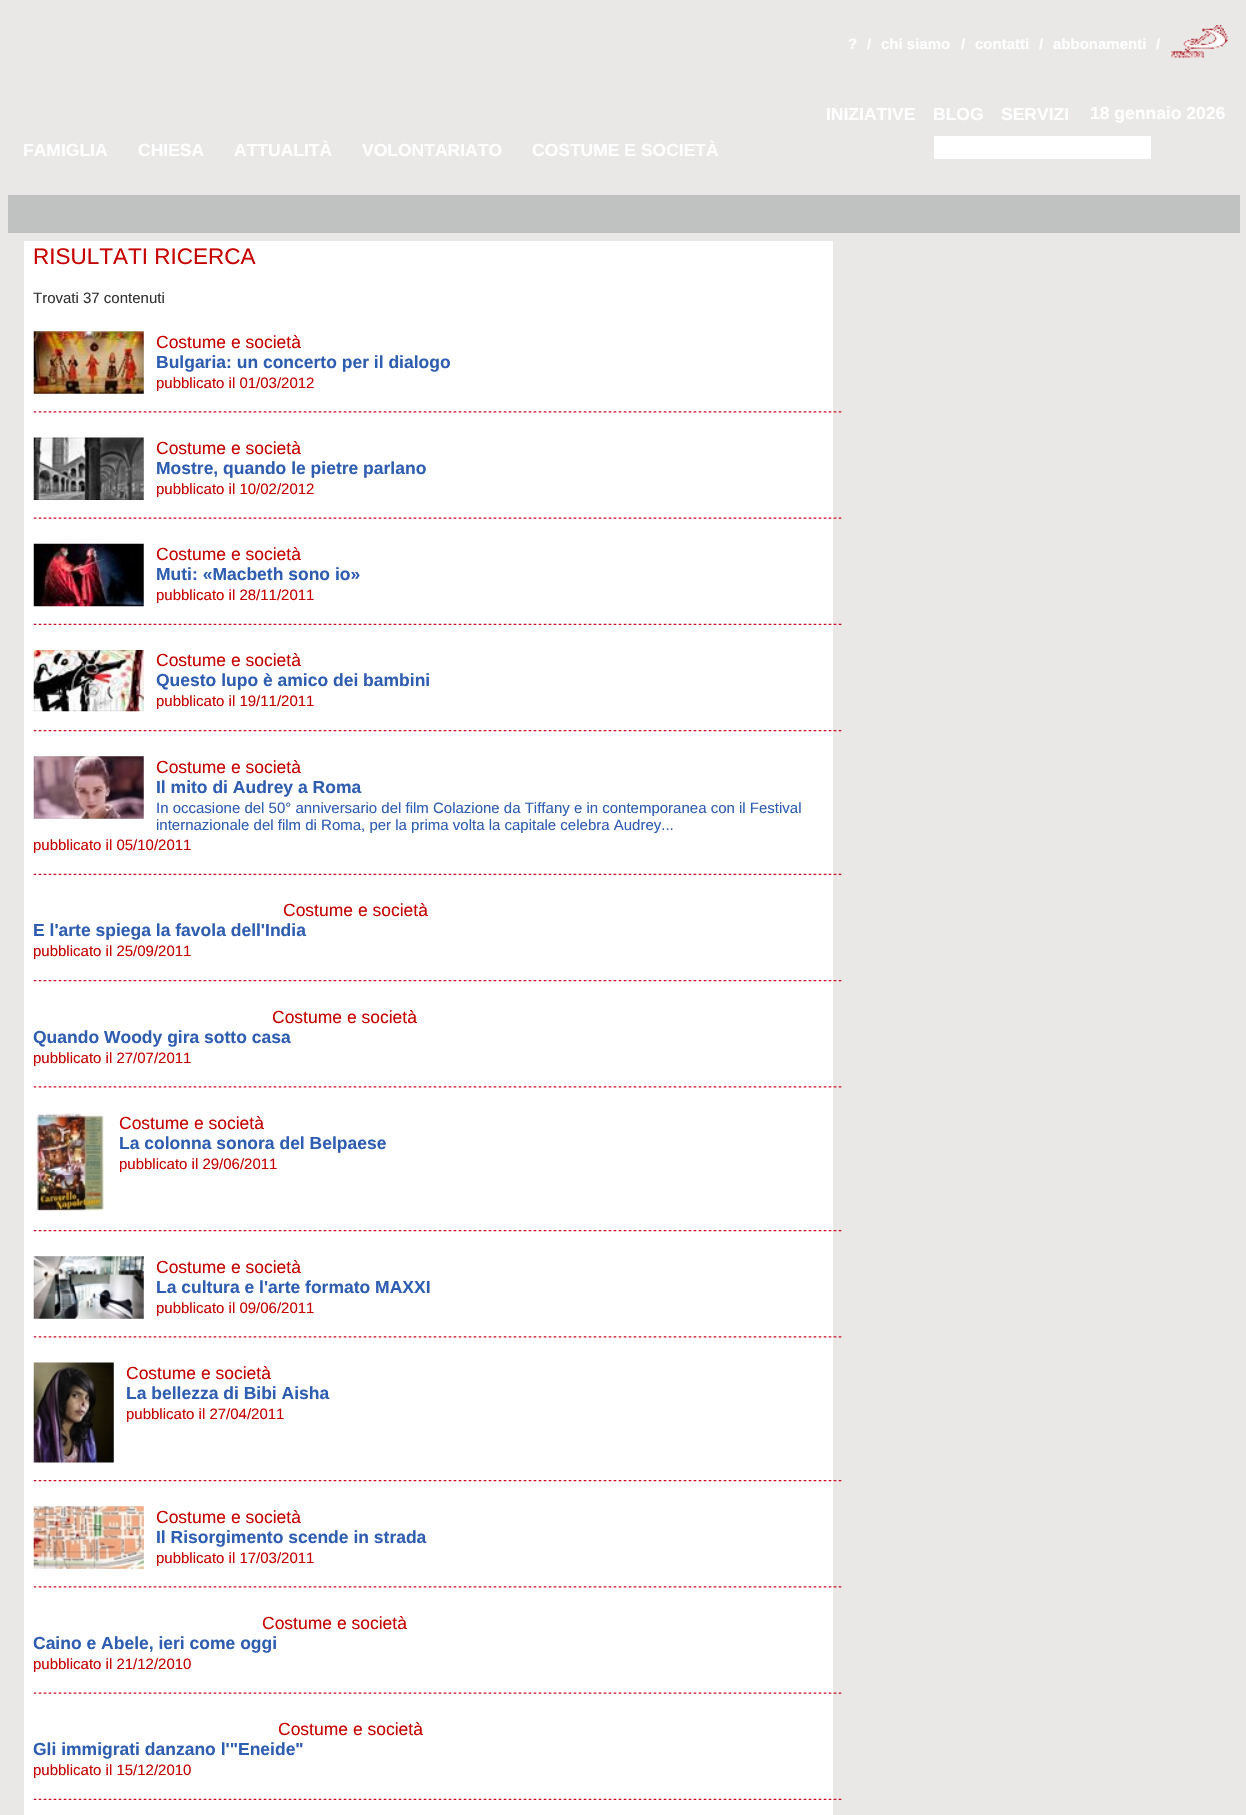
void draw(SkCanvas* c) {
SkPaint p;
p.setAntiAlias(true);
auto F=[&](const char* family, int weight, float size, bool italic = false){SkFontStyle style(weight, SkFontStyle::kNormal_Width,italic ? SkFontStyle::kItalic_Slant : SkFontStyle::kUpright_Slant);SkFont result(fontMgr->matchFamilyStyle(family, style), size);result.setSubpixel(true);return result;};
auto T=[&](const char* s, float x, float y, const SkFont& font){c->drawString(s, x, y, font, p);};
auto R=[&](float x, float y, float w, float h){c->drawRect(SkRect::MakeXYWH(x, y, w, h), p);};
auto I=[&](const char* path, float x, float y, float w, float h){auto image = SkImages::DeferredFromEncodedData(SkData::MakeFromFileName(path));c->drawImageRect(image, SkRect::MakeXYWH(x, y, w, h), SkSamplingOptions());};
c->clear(0xffe9e8e7);
auto f1 = F("Liberation Sans",700,15);
p.setColor(0xffffffff);
T("?",848,49,f1);
T("/",867,49,f1);
T("chi siamo",881,49,f1);
T("/",961,49,f1);
T("contatti",975,49,f1);
T("/",1039,49,f1);
T("abbonamenti",1053,49,f1);
T("/",1156,49,f1);
I("1.png",1171,25,57,33);
auto f2 = F("Liberation Sans",700,17.5);
T("INIZIATIVE",826,120,f2);
T("BLOG",933,120,f2);
T("SERVIZI",1001,120,f2);
T("18 gennaio 2026",1090,119,f2);
T("FAMIGLIA",23,156,f2);
T("CHIESA",138,156,f2);
T("ATTUALITÀ",234,156,f2);
T("VOLONTARIATO",362,156,f2);
T("COSTUME E SOCIETÀ",532,156,f2);
R(934,136,217,23);
p.setColor(0xffc0c2c2);
R(8,195,1232,38);
p.setColor(0xffffffff);
R(24,241,809,1574);
auto f3 = F("Liberation Sans",400,22.5);
p.setColor(0xffc60200);
T("RISULTATI RICERCA",33,264,f3);
auto f4 = F("Liberation Sans",400,15);
p.setColor(0xff333333);
T("Trovati 37 contenuti",33,303,f4);
I("2.png",33,411,809,2);
I("3.png",33,331,111,63);
auto f5 = F("Liberation Sans",400,17.5);
p.setColor(0xffc60200);
T("Costume e società",156,348,f5);
p.setColor(0xff2f5eb1);
T("Bulgaria: un concerto per il dialogo",156,368,f2);
p.setColor(0xffc60200);
T("pubblicato il 01/03/2012",156,388,f4);
I("4.png",33,517,809,2);
I("5.png",33,437,111,63);
T("Costume e società",156,454,f5);
p.setColor(0xff2f5eb1);
T("Mostre, quando le pietre parlano",156,474,f2);
p.setColor(0xffc60200);
T("pubblicato il 10/02/2012",156,494,f4);
I("6.png",33,623,809,2);
I("7.png",33,543,111,64);
T("Costume e società",156,560,f5);
p.setColor(0xff2f5eb1);
T("Muti: «Macbeth sono io»",156,580,f2);
p.setColor(0xffc60200);
T("pubblicato il 28/11/2011",156,600,f4);
I("8.png",33,730,809,2);
I("9.png",33,650,111,62);
T("Costume e società",156,666,f5);
p.setColor(0xff2f5eb1);
T("Questo lupo è amico dei bambini",156,686,f2);
p.setColor(0xffc60200);
T("pubblicato il 19/11/2011",156,706,f4);
I("6.png",33,873,809,2);
I("10.png",33,756,111,63);
T("Costume e società",156,773,f5);
p.setColor(0xff2f5eb1);
T("Il mito di Audrey a Roma",156,793,f2);
T("In occasione del 50° anniversario del film Colazione da Tiffany e in contemporanea con il Festival",156,813,f4);
T("internazionale del film di Roma, per la prima volta la capitale celebra Audrey...",156,830,f4);
p.setColor(0xffc60200);
T("pubblicato il 05/10/2011",33,850,f4);
I("8.png",33,980,809,2);
T("Costume e società",283,916,f5);
p.setColor(0xff2f5eb1);
T("E l'arte spiega la favola dell'India",33,936,f2);
p.setColor(0xffc60200);
T("pubblicato il 25/09/2011",33,956,f4);
I("2.png",33,1086,809,2);
T("Costume e società",272,1023,f5);
p.setColor(0xff2f5eb1);
T("Quando Woody gira sotto casa",33,1043,f2);
p.setColor(0xffc60200);
T("pubblicato il 27/07/2011",33,1063,f4);
I("8.png",33,1230,809,2);
I("11.png",36,1113,69,99);
T("Costume e società",119,1129,f5);
p.setColor(0xff2f5eb1);
T("La colonna sonora del Belpaese",119,1149,f2);
p.setColor(0xffc60200);
T("pubblicato il 29/06/2011",119,1169,f4);
I("2.png",33,1336,809,2);
I("12.png",33,1256,111,63);
T("Costume e società",156,1273,f5);
p.setColor(0xff2f5eb1);
T("La cultura e l'arte formato MAXXI",156,1293,f2);
p.setColor(0xffc60200);
T("pubblicato il 09/06/2011",156,1313,f4);
I("8.png",33,1480,809,2);
I("13.png",33,1362,81,101);
T("Costume e società",126,1379,f5);
p.setColor(0xff2f5eb1);
T("La bellezza di Bibi Aisha",126,1399,f2);
p.setColor(0xffc60200);
T("pubblicato il 27/04/2011",126,1419,f4);
I("2.png",33,1586,809,2);
I("14.png",33,1506,111,63);
T("Costume e società",156,1523,f5);
p.setColor(0xff2f5eb1);
T("Il Risorgimento scende in strada",156,1543,f2);
p.setColor(0xffc60200);
T("pubblicato il 17/03/2011",156,1563,f4);
I("4.png",33,1692,809,2);
T("Costume e società",262,1629,f5);
p.setColor(0xff2f5eb1);
T("Caino e Abele, ieri come oggi",33,1649,f2);
p.setColor(0xffc60200);
T("pubblicato il 21/12/2010",33,1669,f4);
I("6.png",33,1798,809,2);
T("Costume e società",278,1735,f5);
p.setColor(0xff2f5eb1);
T("Gli immigrati danzano l'\"Eneide\"",33,1755,f2);
p.setColor(0xffc60200);
T("pubblicato il 15/12/2010",33,1775,f4);
}
